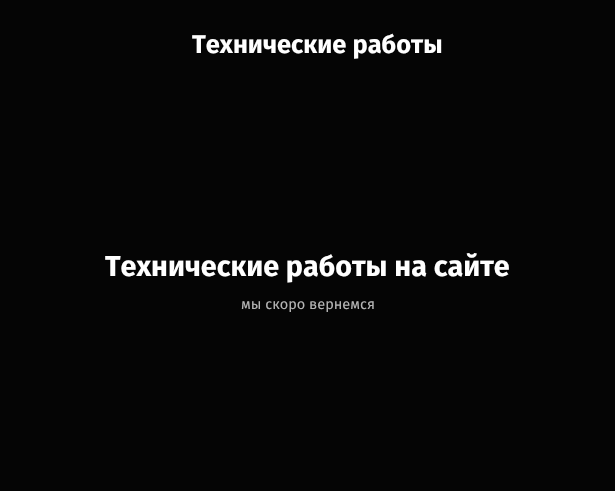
void draw(SkCanvas* c) {
SkPaint p;
p.setAntiAlias(true);
auto F=[&](const char* family, int weight, float size, bool italic = false){SkFontStyle style(weight, SkFontStyle::kNormal_Width,italic ? SkFontStyle::kItalic_Slant : SkFontStyle::kUpright_Slant);SkFont result(fontMgr->matchFamilyStyle(family, style), size);result.setSubpixel(true);return result;};
auto T=[&](const char* s, float x, float y, const SkFont& font){c->drawString(s, x, y, font, p);};
c->clear(0xff050505);
auto f1 = F("Fira Sans",700,25.5);
p.setColor(0xffffffff);
T("Технические работы",192,53,f1);
auto f2 = F("Fira Sans",700,28.75);
T("Технические работы на сайте",105,276,f2);
auto f3 = F("Fira Sans",400,14.5);
p.setColor(0xffb4b4b4);
T("мы скоро вернемся",241,309,f3);
}
